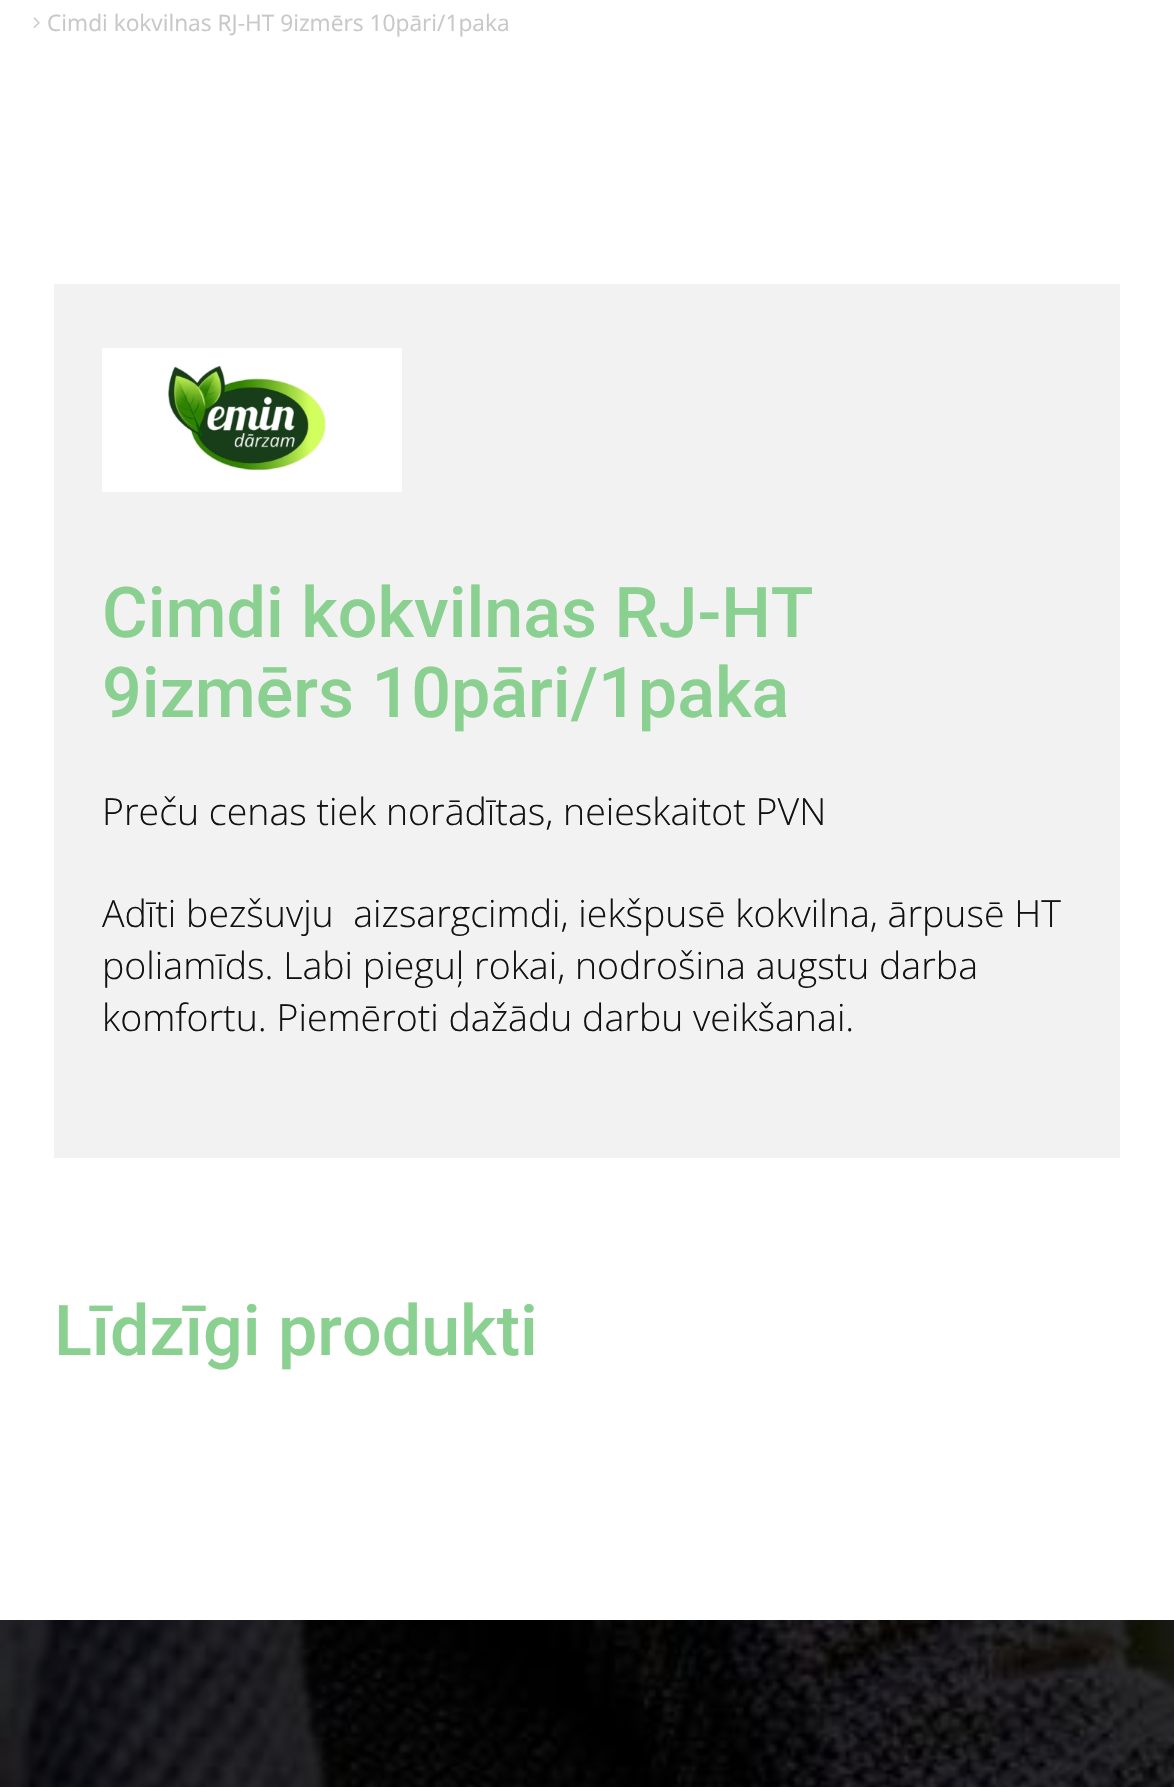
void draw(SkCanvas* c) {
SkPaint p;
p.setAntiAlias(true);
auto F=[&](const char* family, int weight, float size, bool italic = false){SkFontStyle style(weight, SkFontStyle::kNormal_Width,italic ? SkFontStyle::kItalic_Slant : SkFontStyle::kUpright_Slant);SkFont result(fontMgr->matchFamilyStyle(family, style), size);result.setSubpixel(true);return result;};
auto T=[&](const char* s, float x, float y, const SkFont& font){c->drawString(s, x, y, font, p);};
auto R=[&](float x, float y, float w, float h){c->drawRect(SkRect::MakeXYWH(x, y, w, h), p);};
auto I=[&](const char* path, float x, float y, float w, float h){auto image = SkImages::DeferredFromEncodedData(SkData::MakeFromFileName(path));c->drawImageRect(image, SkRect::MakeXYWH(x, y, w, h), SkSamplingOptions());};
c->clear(0xffffffff);
I("1.png",33,17,7,11);
auto f1 = F("Open Sans",400,22.75);
p.setColor(0xffc8c8c8);
T("Cimdi kokvilnas RJ-HT 9izmērs 10pāri/1paka",47,31,f1);
p.setColor(0xfff2f2f2);
R(54,284,1066,874);
I("2.png",102,348,300,144);
auto f2 = F("Roboto",500,70);
p.setColor(0xff8ad090);
T("Cimdi kokvilnas RJ-HT",102,637,f2);
T("9izmērs 10pāri/1paka",102,717,f2);
auto f3 = F("Open Sans",300,37.5);
p.setColor(0xff121212);
T("Preču cenas tiek norādītas, neieskaitot PVN",102,825,f3);
T("Adīti bezšuvju  aizsargcimdi, iekšpusē kokvilna, ārpusē HT",102,927,f3);
T("poliamīds. Labi pieguļ rokai, nodrošina augstu darba",102,979,f3);
T("komfortu. Piemēroti dažādu darbu veikšanai.",102,1031,f3);
p.setColor(0xff8ad090);
T("Līdzīgi produkti",54,1355,f2);
I("3.png",0,1620,1174,167);
}
